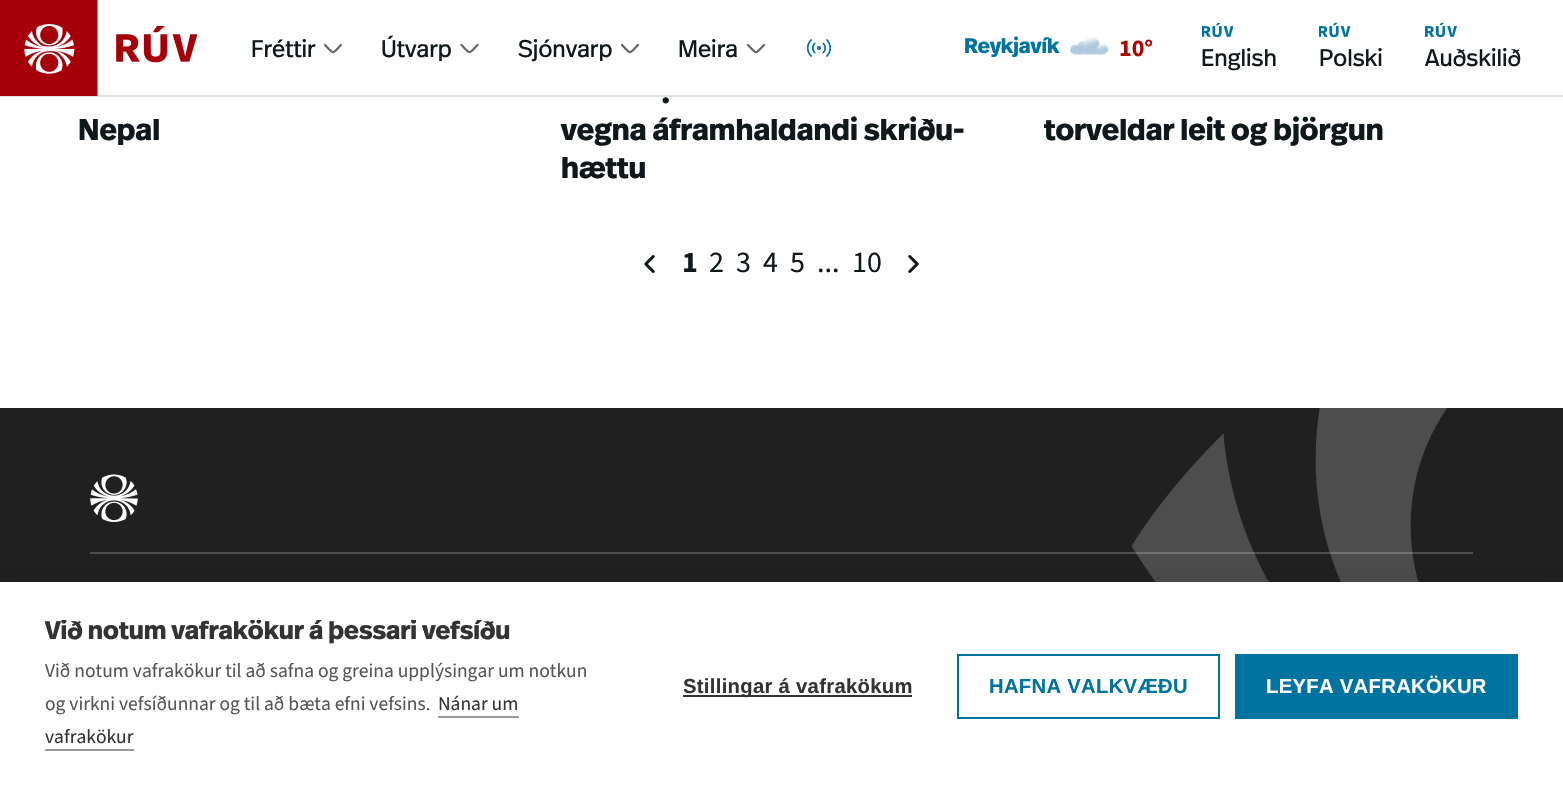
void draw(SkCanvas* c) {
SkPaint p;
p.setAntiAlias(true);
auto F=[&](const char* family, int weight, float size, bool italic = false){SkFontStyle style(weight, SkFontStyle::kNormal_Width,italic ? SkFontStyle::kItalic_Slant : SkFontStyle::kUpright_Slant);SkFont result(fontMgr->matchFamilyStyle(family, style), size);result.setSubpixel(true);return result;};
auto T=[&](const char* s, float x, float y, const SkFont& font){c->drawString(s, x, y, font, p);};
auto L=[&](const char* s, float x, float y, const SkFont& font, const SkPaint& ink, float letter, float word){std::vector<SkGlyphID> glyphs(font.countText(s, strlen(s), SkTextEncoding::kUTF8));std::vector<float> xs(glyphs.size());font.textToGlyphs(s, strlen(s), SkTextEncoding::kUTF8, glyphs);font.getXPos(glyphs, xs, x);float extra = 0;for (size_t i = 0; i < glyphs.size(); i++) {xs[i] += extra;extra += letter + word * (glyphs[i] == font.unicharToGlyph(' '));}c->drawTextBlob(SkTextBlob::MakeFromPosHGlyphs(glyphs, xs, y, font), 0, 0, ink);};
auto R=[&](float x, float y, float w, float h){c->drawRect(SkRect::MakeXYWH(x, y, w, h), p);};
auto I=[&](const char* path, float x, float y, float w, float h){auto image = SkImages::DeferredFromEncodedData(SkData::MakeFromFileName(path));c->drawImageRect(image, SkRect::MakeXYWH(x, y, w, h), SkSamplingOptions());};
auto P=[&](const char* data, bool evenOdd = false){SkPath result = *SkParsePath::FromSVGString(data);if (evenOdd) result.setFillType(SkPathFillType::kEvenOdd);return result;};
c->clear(0xffffffff);
p.setColor(0xffe2e2e2);
R(0,95,1563,2);
I("1.png",0,0,198,96);
auto f1 = F("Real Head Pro",400,24);
p.setColor(0xff11181c);
T("Fréttir",251,57,f1);
p.setStroke(true);
p.setStrokeWidth(2.2);
p.setStrokeCap(SkPaint::kRound_Cap);
p.setStrokeJoin(SkPaint::kRound_Join);
p.setColor(0xff646464);
c->drawPath(P("M341 45c-9.5 9.5-6.5 9.5-16 0"),p);
p.setStroke(false);
p.setColor(0xff11181c);
T("Útvarp",381,57,f1);
p.setStroke(true);
p.setColor(0xff646464);
c->drawPath(P("M477.5 45c-9.5 9.5-6.5 9.5-16 0"),p);
p.setStroke(false);
p.setColor(0xff11181c);
T("Sjónvarp",518,57,f1);
p.setStroke(true);
p.setColor(0xff646464);
c->drawPath(P("M638 45c-9.5 9.5-6.5 9.5-16 0"),p);
p.setStroke(false);
p.setColor(0xff11181c);
T("Meira",678,57,f1);
p.setStroke(true);
p.setColor(0xff646464);
c->drawPath(P("M764 45c-9.5 9.5-6.5 9.5-16 0"),p);
I("2.png",806,39,26,18);
auto f2 = F("Real Head Pro",700,21);
p.setStroke(false);
p.setColor(0xff0073a0);
T("Reykjavík",964,53,f2);
I("3.png",1069,37,40,18);
auto f3 = F("Source Sans 3",700,24);
p.setColor(0xffac0802);
T("10°",1119,56,f3);
I("4.png",1202,22,31,16);
p.setColor(0xff11181c);
T("English",1201,66,f1);
I("5.png",1319,22,32,16);
T("Polski",1319,66,f1);
I("6.png",1425,22,32,16);
T("Auðskilið",1425,66,f1);
auto f4 = F("Real Head Pro",700,30);
T("Nepal",78,140,f4);
T(".",661,103,f4);
T("vegna áframhaldandi skriðu-",561,140,f4);
T("hættu",561,178,f4);
T("torveldar leit og björgun",1044,140,f4);
I("7.png",644,255,11,18);
auto f5 = F("Source Sans 3",700,30);
T("1",682,272,f5);
auto f6 = F("Source Sans 3",400,30);
T("2",709,272,f6);
T("3",736,272,f6);
T("4",763,272,f6);
T("5",790,272,f6);
T("...",817,272,f6);
T("10",852,272,f6);
I("8.png",908,255,11,18);
p.setColor(0xff202020);
R(0,408,1563,174);
p.setColor(0xff4d4d4d);
R(90,552,1383,2);
I("9.png",1131,408,316,174);
I("10.png",90,474,48,48);
p.setColor(0x1a000000);
p.setMaskFilter(SkMaskFilter::MakeBlur(kNormal_SkBlurStyle, 15));
c->drawRect(SkRect::MakeXYWH(0,582,1563,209),p);
p.setMaskFilter(nullptr);
p.setColor(0xffffffff);
R(0,582,1563,208);
c->save();
c->clipRect(SkRect::MakeXYWH(45,620,548,133));
auto f7 = F("Real Head Pro",700,25.5);
p.setColor(0xff333333);
T("Við notum vafrakökur á þessari vefsíðu",45,639,f7);
c->restore();
auto f8 = F("Source Sans 3",400,19.5);
p.setColor(0xff555555);
T("Við notum vafrakökur til að safna og greina upplýsingar um notkun",45,677,f8);
T("og virkni vefsíðunnar og til að bæta efni vefsins.",45,710,f8);
p.setColor(0xff333333);
T("Nánar um",438,710,f8);
p.setColor(0xff999999);
R(438,716,81,2);
p.setColor(0xff333333);
T("vafrakökur",45,743,f8);
p.setColor(0xff999999);
R(45,749,89,2);
p.setColor(0xff333333);
R(683,695,229,2);
auto f9 = F("Liberation Sans",700,20.25);
L("Stillingar á vafrakökum",683,693,f9,p,.3,0);
p.setStroke(true);
p.setStrokeWidth(2);
p.setStrokeCap(SkPaint::kButt_Cap);
p.setStrokeJoin(SkPaint::kMiter_Join);
p.setColor(0xff0073a0);
c->drawRect(SkRect::MakeXYWH(958,655,261,63),p);
p.setStroke(false);
L("HAFNA VALKVÆÐU",989,693,f9,p,.3,0);
R(1235,654,283,65);
p.setColor(0xffffffff);
L("LEYFA VAFRAKÖKUR",1266,693,f9,p,.3,0);
}
